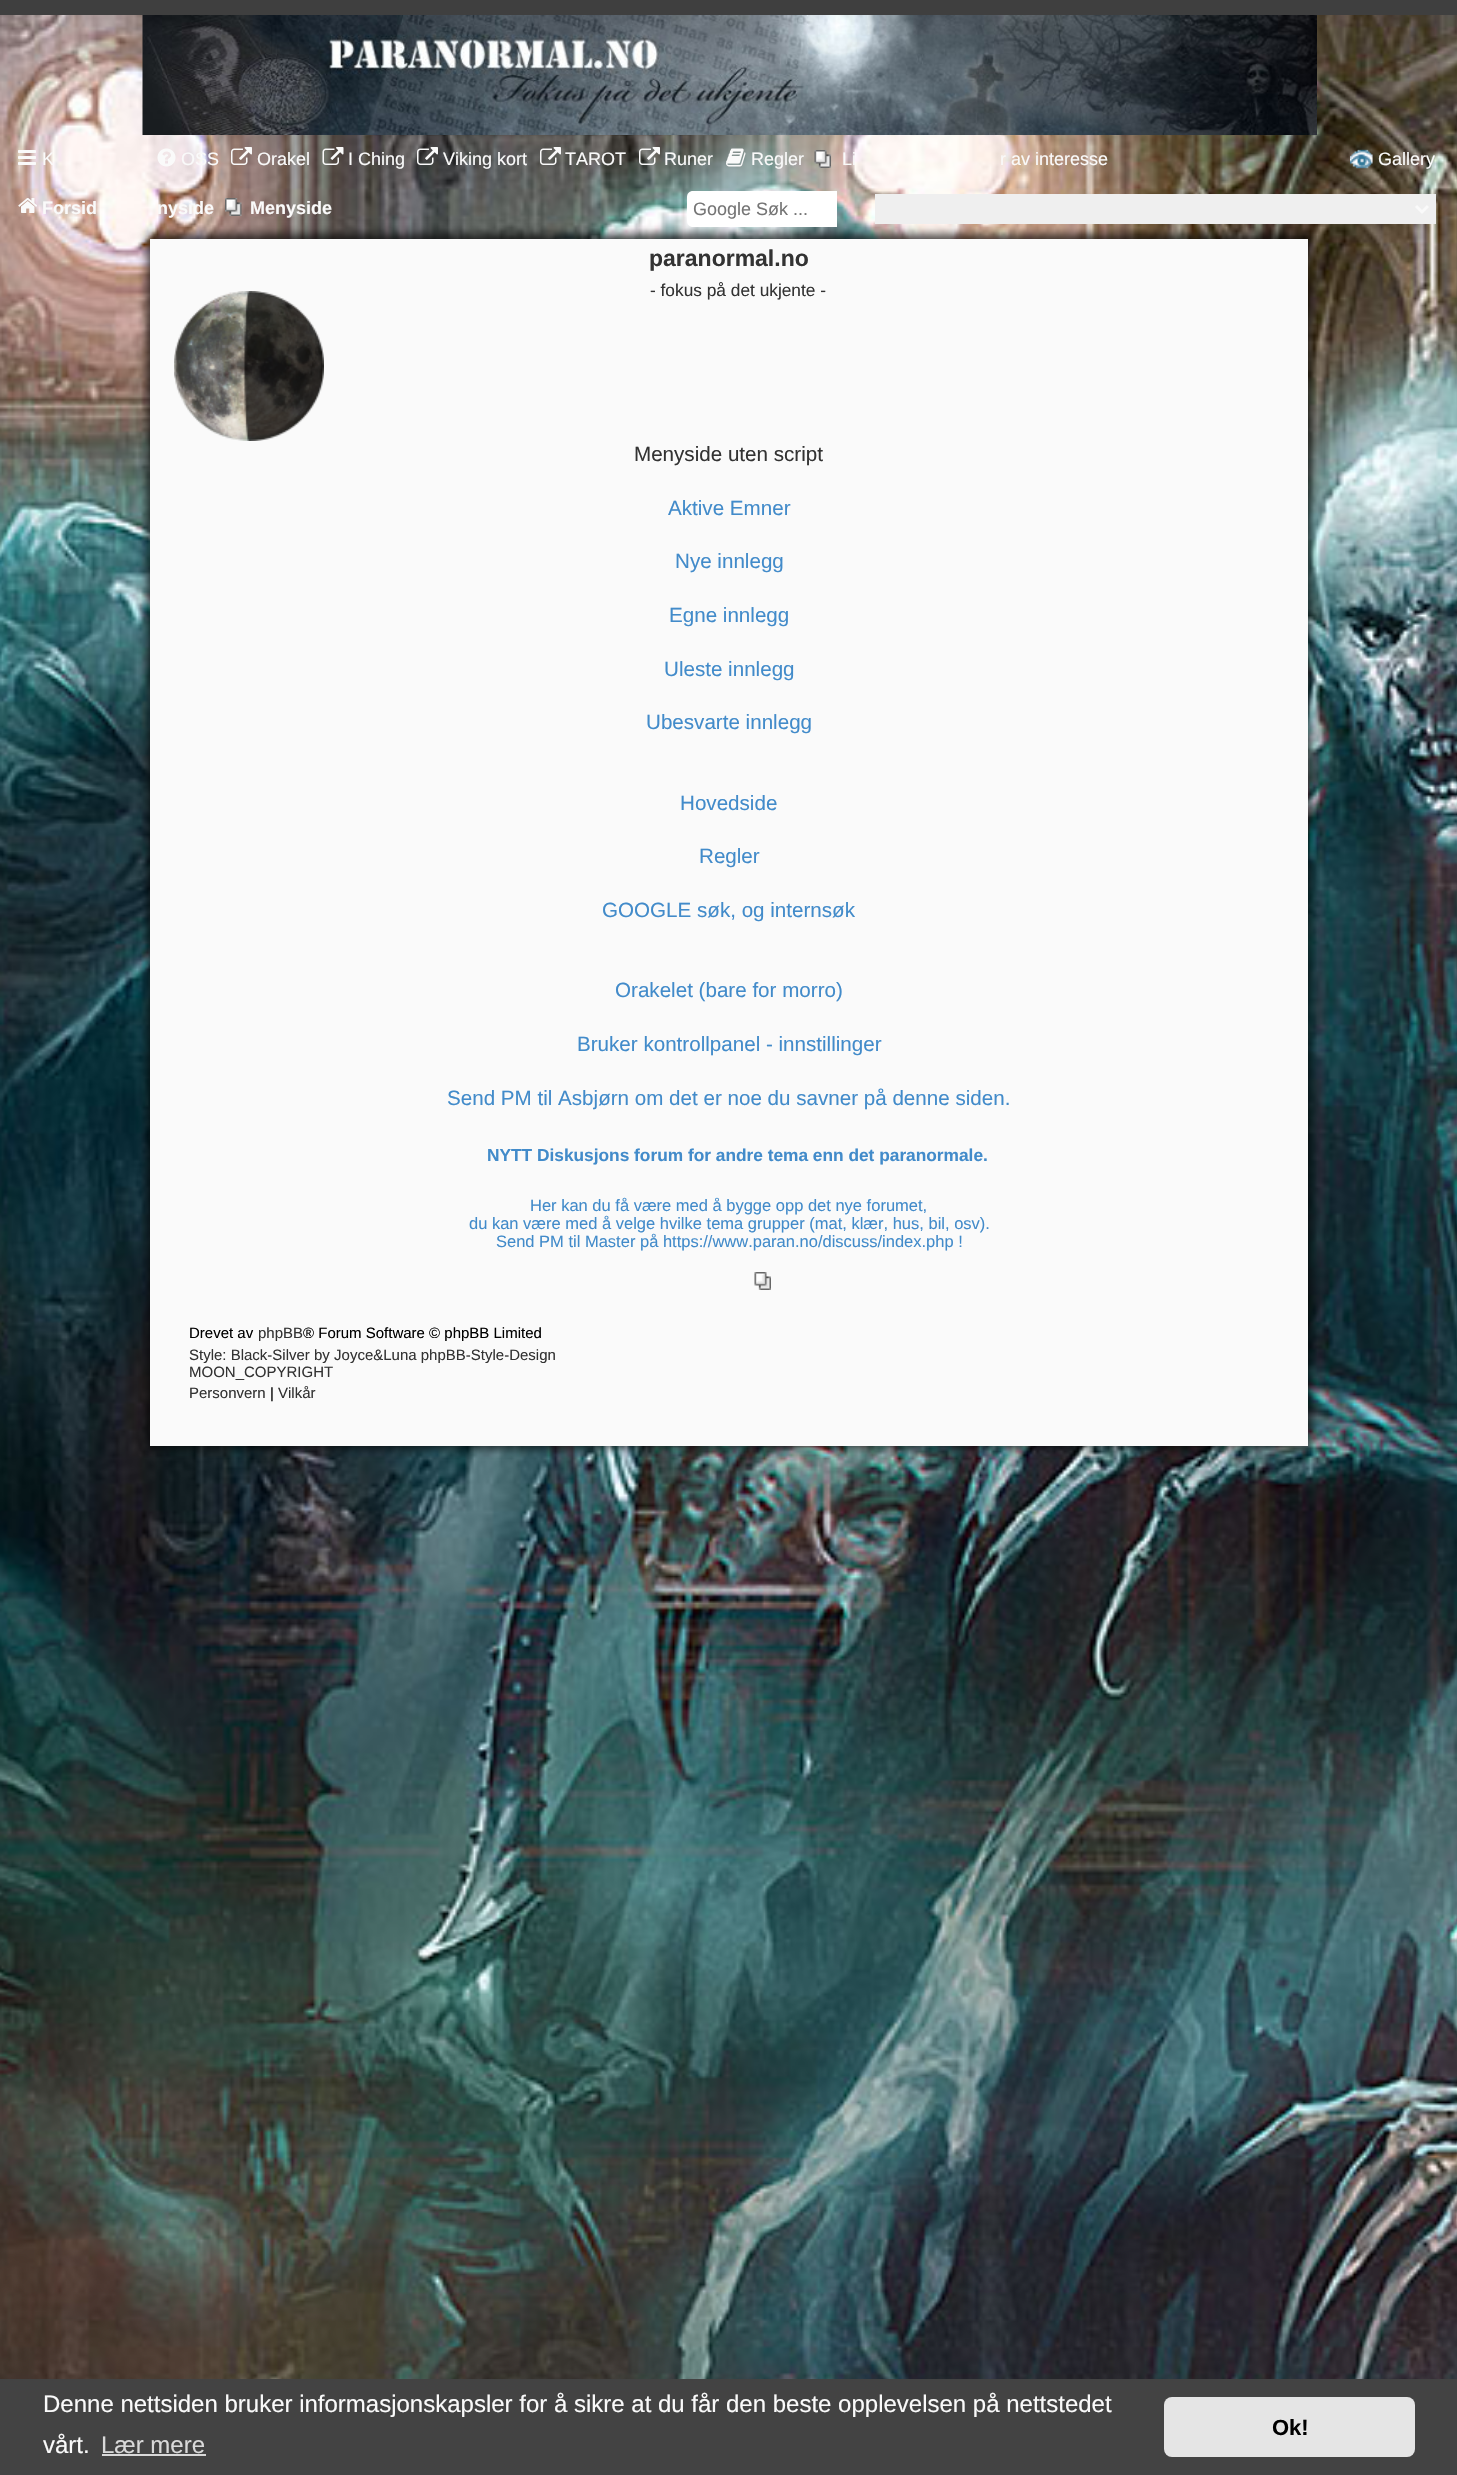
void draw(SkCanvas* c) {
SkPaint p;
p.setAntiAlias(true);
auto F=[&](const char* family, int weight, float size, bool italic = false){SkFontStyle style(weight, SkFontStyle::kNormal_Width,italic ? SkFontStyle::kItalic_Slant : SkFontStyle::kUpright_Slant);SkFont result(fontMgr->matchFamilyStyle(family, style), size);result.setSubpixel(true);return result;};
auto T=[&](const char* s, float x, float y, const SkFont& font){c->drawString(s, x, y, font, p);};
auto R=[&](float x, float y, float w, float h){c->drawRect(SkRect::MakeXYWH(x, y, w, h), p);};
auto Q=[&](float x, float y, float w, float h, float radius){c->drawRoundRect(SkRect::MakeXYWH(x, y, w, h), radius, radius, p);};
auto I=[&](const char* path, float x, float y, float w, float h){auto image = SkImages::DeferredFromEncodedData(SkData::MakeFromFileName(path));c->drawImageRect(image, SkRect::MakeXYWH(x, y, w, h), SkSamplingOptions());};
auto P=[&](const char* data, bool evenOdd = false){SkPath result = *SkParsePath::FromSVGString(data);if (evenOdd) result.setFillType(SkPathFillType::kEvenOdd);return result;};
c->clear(0xffffffff);
I("1.png",0,1466,1457,913);
I("2.png",0,15,1457,1451);
p.setColor(0xff3f3f3f);
R(0,0,1457,15);
I("3.png",142,15,1175,120);
I("4.png",18,150,18,15);
auto f1 = F("Liberation Sans",400,18);
p.setColor(0xfffafafa);
T("K",42,165,f1);
I("5.png",157,148,19,19);
T("OSS",181,165,f1);
I("6.png",231,147,21,18);
T("Orakel",257,165,f1);
I("7.png",322,147,22,18);
T("I Ching",348,165,f1);
I("8.png",417,147,21,18);
T("Viking kort",443,165,f1);
I("9.png",540,147,21,18);
T("TAROT",565,165,f1);
I("10.png",639,147,21,18);
T("Runer",664,165,f1);
I("11.png",726,148,20,19);
T("Regler",751,165,f1);
I("12.png",814,150,17,18);
T("Li",842,165,f1);
T("r av interesse",1000,165,f1);
I("13.png",1350,149,23,20);
T("Gallery",1378,165,f1);
I("14.png",18,198,19,15);
auto f2 = F("Liberation Sans",700,18);
T("Forsid",42,214,f2);
T("nyside",157,214,f2);
I("15.png",225,198,17,18);
T("Menyside",250,214,f2);
p.setColor(0xb3020202);
p.setMaskFilter(SkMaskFilter::MakeBlur(kNormal_SkBlurStyle, 4.5));
c->drawRect(SkRect::MakeXYWH(147,234,1164,1214),p);
p.setMaskFilter(nullptr);
p.setColor(0xffffffff);
c->drawPath(P("M693 191h144v36h-144c-3.5 0-6-2.5-6-6v-24c0-3.5 2.5-6 6-6z"),p);
p.setColor(0xff757575);
T("Google Søk ...",693,215,f1);
p.setColor(0xffefefef);
R(875,194,561,30);
p.setStroke(true);
p.setStrokeWidth(3);
p.setColor(0xfffafafa);
c->drawPath(P("M1416 206l6 6l6-6"),p);
p.setStroke(false);
R(150,239,1158,1207);
auto f3 = F("Liberation Sans",700,23);
p.setColor(0xff333333);
T("paranormal.no",649,266,f3);
I("16.png",174,291,150,150);
auto f4 = F("Liberation Sans",400,17.3);
T("- fokus på det ukjente -",650,296,f4);
auto f5 = F("Liberation Sans",400,20.6);
T("Menyside uten script",634,461,f5);
p.setColor(0xff428bca);
T("Aktive Emner",668,515,f5);
T("Nye innlegg",675,568,f5);
T("Egne innlegg",669,622,f5);
T("Uleste innlegg",664,676,f5);
T("Ubesvarte innlegg",646,729,f5);
T("Hovedside",680,810,f5);
T("Regler",699,863,f5);
T("GOOGLE søk, og internsøk",602,917,f5);
T("Orakelet (bare for morro)",615,997,f5);
T("Bruker kontrollpanel - innstillinger",577,1051,f5);
T("Send PM til Asbjørn om det er noe du savner på denne siden.",447,1105,f5);
auto f6 = F("Liberation Sans",700,17.3);
T("NYTT Diskusjons forum for andre tema enn det paranormale.",487,1161,f6);
auto f7 = F("Liberation Sans",400,16.5);
T("Her kan du få være med å bygge opp det nye forumet,",530,1211,f7);
T("du kan være med å velge hvilke tema grupper (mat, klær, hus, bil, osv).",469,1229,f7);
T("Send PM til Master på https://www.paran.no/discuss/index.php !",496,1247,f7);
I("17.png",754,1272,17,18);
auto f8 = F("Liberation Sans",400,15);
p.setColor(0xff000000);
T("Drevet av",189,1338,f8);
p.setColor(0xff333333);
T("phpBB",258,1338,f8);
p.setColor(0xff000000);
T("® Forum Software © phpBB Limited",303,1338,f8);
p.setColor(0xff333333);
T("Style: Black-Silver by Joyce&Luna phpBB-Style-Design",189,1360,f8);
T("MOON_COPYRIGHT",189,1377,f8);
T("Personvern",189,1398,f8);
p.setColor(0xff000000);
T("|",270,1398,f8);
p.setColor(0xff333333);
T("Vilkår",278,1398,f8);
p.setColor(0xff434343);
R(0,2379,1457,96);
auto f9 = F("Liberation Sans",400,24);
p.setColor(0xfffafafa);
T("Denne nettsiden bruker informasjonskapsler for å sikre at du får den beste opplevelsen på nettstedet",43,2412,f9);
T("vårt.",43,2453,f9);
p.setColor(0xffd9d9d9);
T("Lær mere",101,2453,f9);
R(102,2454,104,2);
p.setColor(0xffe5e5e5);
Q(1164,2397,251,60,8);
auto f10 = F("Liberation Sans",700,22);
p.setColor(0xff000000);
T("Ok!",1272,2435,f10);
}
